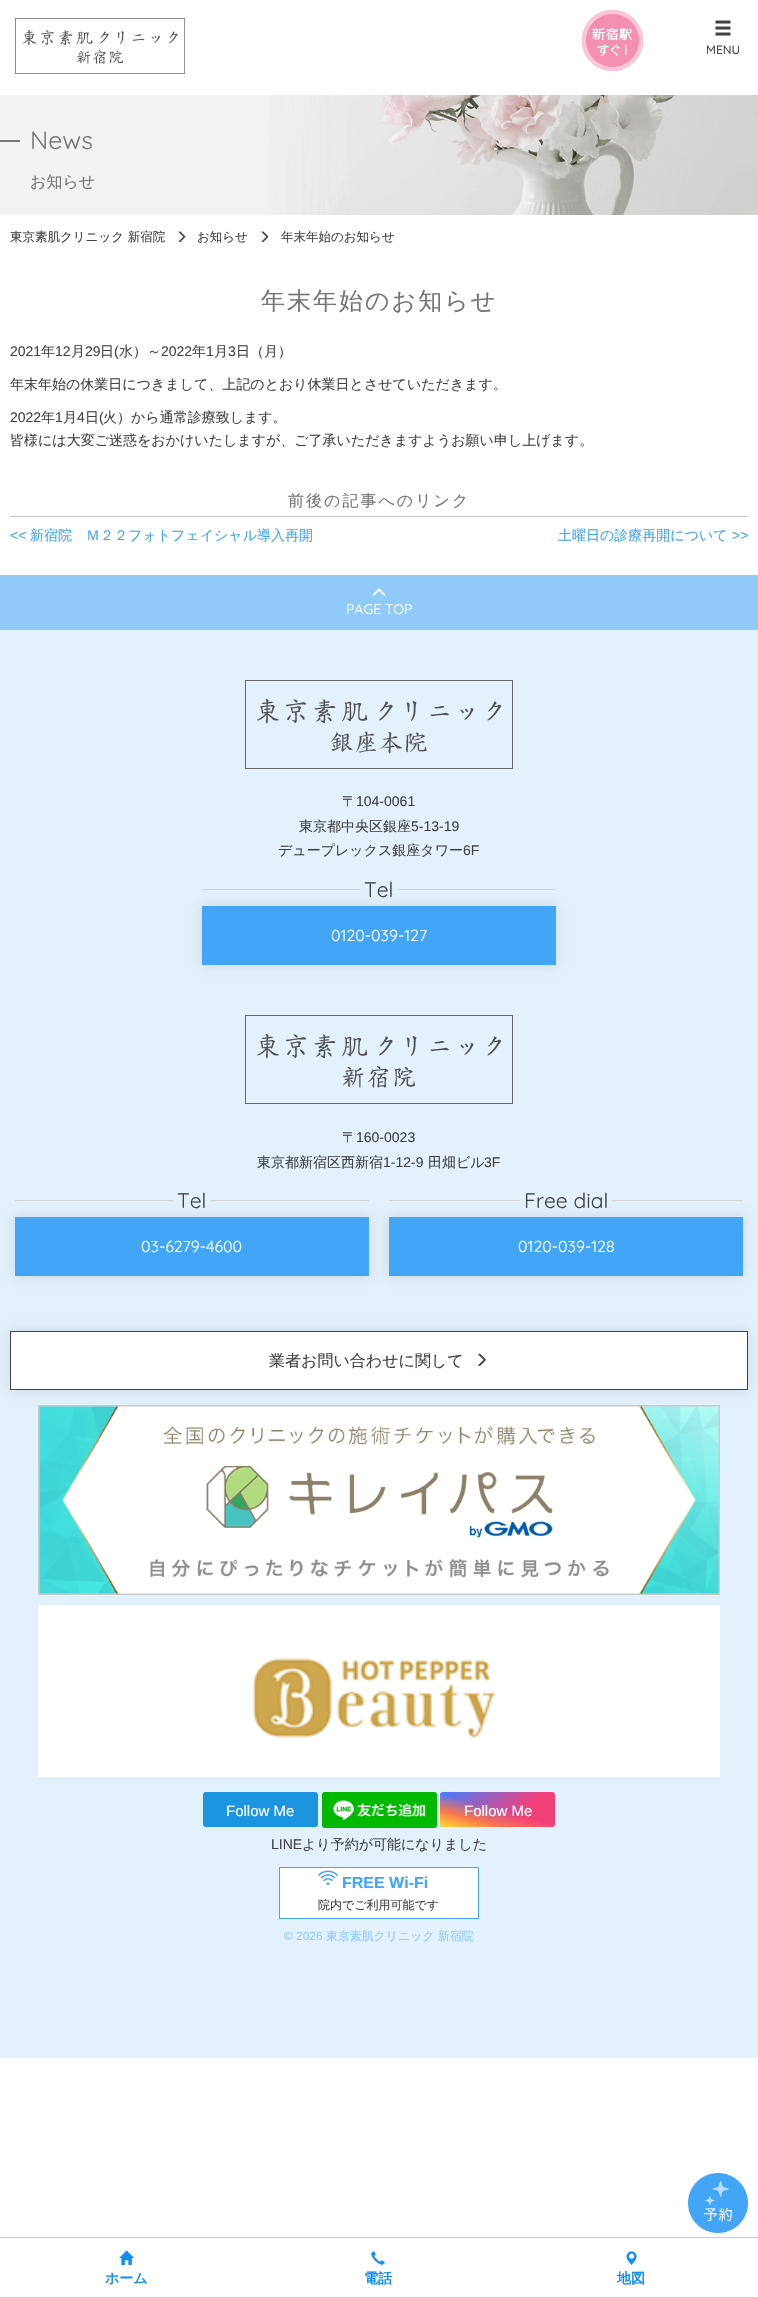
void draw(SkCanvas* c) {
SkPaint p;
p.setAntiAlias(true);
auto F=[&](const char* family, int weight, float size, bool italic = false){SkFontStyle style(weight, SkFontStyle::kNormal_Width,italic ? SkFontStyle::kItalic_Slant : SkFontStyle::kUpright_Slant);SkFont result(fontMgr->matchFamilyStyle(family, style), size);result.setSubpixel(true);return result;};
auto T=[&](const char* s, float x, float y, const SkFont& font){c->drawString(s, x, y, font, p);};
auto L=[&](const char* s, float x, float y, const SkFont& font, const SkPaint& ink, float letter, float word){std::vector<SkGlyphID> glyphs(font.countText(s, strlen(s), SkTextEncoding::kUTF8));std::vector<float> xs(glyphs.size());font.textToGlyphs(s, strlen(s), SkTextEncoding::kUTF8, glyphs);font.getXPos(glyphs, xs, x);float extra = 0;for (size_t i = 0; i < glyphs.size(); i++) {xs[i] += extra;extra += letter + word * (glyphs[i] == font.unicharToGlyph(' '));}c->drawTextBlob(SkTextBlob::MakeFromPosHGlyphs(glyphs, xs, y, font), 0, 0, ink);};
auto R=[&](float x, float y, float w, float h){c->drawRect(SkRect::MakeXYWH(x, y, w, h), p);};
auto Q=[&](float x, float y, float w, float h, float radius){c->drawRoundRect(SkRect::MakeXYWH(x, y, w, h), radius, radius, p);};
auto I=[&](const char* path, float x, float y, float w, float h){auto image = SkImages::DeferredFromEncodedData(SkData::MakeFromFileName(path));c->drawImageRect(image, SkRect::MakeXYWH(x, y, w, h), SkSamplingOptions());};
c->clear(0xffffffff);
I("1.png",15,18,170,56);
I("2.png",582,10,61,61);
I("3.png",715,20,16,16);
auto f1 = F("Quicksand",500,12);
p.setColor(0xff424242);
T("MENU",706,54,f1);
p.setColor(0xfff4f2f3);
R(0,95,349,120);
I("4.png",270,95,488,120);
p.setColor(0xff757575);
R(0,140,20,2);
auto f2 = F("Quicksand",400,25);
T("News",30,149,f2);
auto f3 = F("WenQuanYi Zen Hei",500,16);
T("お知らせ",30,187,f3);
auto f4 = F("WenQuanYi Zen Hei",500,12.5);
p.setColor(0xff424242);
T("東京素肌クリニック 新宿院",10,241,f4);
I("5.png",178,231,8,11);
T("お知らせ",197,241,f4);
I("5.png",261,231,8,11);
T("年末年始のお知らせ",281,241,f4);
auto f5 = F("WenQuanYi Zen Hei",500,24);
p.setColor(0xff757575);
L("年末年始のお知らせ",261,309,f5,p,2,0);
auto f6 = F("Liberation Sans",400,14);
p.setColor(0xff424242);
T("2021",10,356,f6);
auto f7 = F("WenQuanYi Zen Hei",500,14);
T("年",41,356,f7);
T("12",55,356,f6);
T("月",71,356,f7);
T("29",85,356,f6);
T("日",100,356,f7);
T("(",114,356,f6);
T("水）～",119,356,f7);
T("2022",161,356,f6);
T("年",192,356,f7);
T("1",206,356,f6);
T("月",214,356,f7);
T("3",228,356,f6);
T("日（月）",236,356,f7);
T("年末年始の休業日につきまして、上記のとおり休業日とさせていただきます。",10,389,f7);
T("2022",10,422,f6);
T("年",41,422,f7);
T("1",55,422,f6);
T("月",63,422,f7);
T("4",77,422,f6);
T("日",85,422,f7);
T("(",99,422,f6);
T("火）から通常診療致します。",103,422,f7);
T("皆様には大変ご迷惑をおかけいたしますが、ご了承いただきますようお願い申し上げます。",10,445,f7);
p.setColor(0xffc9caca);
R(10,516,738,1);
p.setColor(0xff757575);
L("前後の記事へのリンク",288,506,f3,p,2,0);
p.setColor(0xff42a5f5);
T("<<",10,540,f6);
T("新宿院　Ｍ２２フォトフェイシャル導入再開",30,540,f7);
T("土曜日の診療再開について",558,540,f7);
T(">>",732,540,f6);
p.setColor(0xff90caf9);
R(0,575,758,55);
I("6.png",373,588,12,9);
auto f8 = F("Quicksand",400,14);
p.setColor(0xffffffff);
T("PAGE TOP",346,614,f8);
p.setColor(0xffe3f1fd);
R(0,630,758,1428);
I("7.png",245,680,268,89);
p.setColor(0xff424242);
T("〒",342,806,f7);
T("104-0061",356,806,f6);
T("東京都中央区銀座",299,831,f7);
T("5-13-19",411,831,f6);
T("デュープレックス銀座タワー",278,855,f7);
T("6F",463,855,f6);
p.setColor(0xffd5d5d5);
R(202,889,158,1);
auto f9 = F("Quicksand",400,21);
p.setColor(0xff424242);
T("Tel",364,897,f9);
p.setColor(0xffd5d5d5);
R(398,889,158,1);
p.setColor(0x1a000000);
p.setMaskFilter(SkMaskFilter::MakeBlur(kNormal_SkBlurStyle, 6));
c->drawRect(SkRect::MakeXYWH(202,906,354,59),p);
p.setMaskFilter(nullptr);
p.setColor(0xff42a5f5);
R(202,906,354,59);
auto f10 = F("Quicksand",400,16);
p.setColor(0xffffffff);
T("0120-039-127",331,941,f10);
I("8.png",245,1015,268,89);
p.setColor(0xff424242);
T("〒",342,1142,f7);
T("160-0023",356,1142,f6);
T("東京都新宿区西新宿",257,1167,f7);
T("1-12-9",383,1167,f6);
T("田畑ビル",428,1167,f7);
T("3F",484,1167,f6);
p.setColor(0xffd5d5d5);
R(15,1200,158,1);
p.setColor(0xff424242);
T("Tel",177,1208,f9);
p.setColor(0xffd5d5d5);
R(211,1200,158,1);
p.setColor(0x1a000000);
p.setMaskFilter(SkMaskFilter::MakeBlur(kNormal_SkBlurStyle, 6));
c->drawRect(SkRect::MakeXYWH(15,1217,354,59),p);
p.setMaskFilter(nullptr);
p.setColor(0xff42a5f5);
R(15,1217,354,59);
p.setColor(0xffffffff);
T("03-6279-4600",141,1252,f10);
p.setColor(0xffd5d5d5);
R(389,1200,131,1);
p.setColor(0xff424242);
T("Free dial",524,1208,f9);
p.setColor(0xffd5d5d5);
R(612,1200,131,1);
p.setColor(0x1a000000);
p.setMaskFilter(SkMaskFilter::MakeBlur(kNormal_SkBlurStyle, 6));
c->drawRect(SkRect::MakeXYWH(389,1217,354,59),p);
p.setMaskFilter(nullptr);
p.setColor(0xff42a5f5);
R(389,1217,354,59);
p.setColor(0xffffffff);
T("0120-039-128",518,1252,f10);
p.setColor(0x1a000000);
p.setMaskFilter(SkMaskFilter::MakeBlur(kNormal_SkBlurStyle, 6));
c->drawRect(SkRect::MakeXYWH(10,1331,738,59),p);
p.setMaskFilter(nullptr);
p.setColor(0xffffffff);
c->drawRect(SkRect::MakeXYWH(10.5,1331.5,737,58),p);
p.setStroke(true);
p.setStrokeWidth(1);
p.setColor(0xff424242);
c->drawRect(SkRect::MakeXYWH(10.5,1331.5,737,58),p);
p.setStroke(false);
T("業者お問い合わせに関して",269,1366,f3);
I("9.png",477,1353,9,13);
I("10.png",38,1405,682,190);
p.setColor(0xffffffff);
R(38,1605,682,172);
I("11.png",252,1658,245,80);
p.setColor(0xff1b95e0);
Q(203,1792,115,35,3);
auto f11 = F("Liberation Sans",400,15);
p.setColor(0xffffffff);
T("Follow Me",226,1816,f11);
I("12.png",322,1792,115,36);
{
const SkColor colors[] = {0xff427eff,0xfff13f79};
const float stops[] = {0,.7};
const SkPoint ends[] = {{460,1772}, {535,1847}};
p.setShader(SkGradientShader::MakeLinear(ends, colors, stops, 2, SkTileMode::kClamp));
p.setAlpha(255);
}
Q(440,1792,115,35,3);
{
const SkColor colors[] = {0xffffdb2c,0xfff9764c,0x00f9764c};
const float stops[] = {0,.25,.5};
const SkPoint ends[] = {{489,1840}, {506,1779}};
p.setShader(SkGradientShader::MakeLinear(ends, colors, stops, 3, SkTileMode::kClamp));
p.setAlpha(255);
}
Q(440,1792,115,35,3);
p.setShader(nullptr);
p.setColor(0xffffffff);
T("Follow Me",464,1816,f11);
p.setColor(0xff424242);
T("LINE",271,1849,f6);
T("より予約が可能になりました",302,1849,f7);
p.setColor(0xffffffff);
c->drawRect(SkRect::MakeXYWH(279.5,1867.5,199,51),p);
p.setStroke(true);
p.setColor(0xff42a5f5);
c->drawRect(SkRect::MakeXYWH(279.5,1867.5,199,51),p);
I("13.png",318,1870,20,16);
auto f12 = F("Liberation Sans",700,16);
p.setStroke(false);
T("FREE Wi-Fi",342,1888,f12);
auto f13 = F("WenQuanYi Zen Hei",500,12);
p.setColor(0xff424242);
T("院内でご利用可能です",318,1909,f13);
auto f14 = F("Liberation Sans",400,11.9);
p.setColor(0xff90caf9);
T("© 2026",284,1940,f14);
auto f15 = F("WenQuanYi Zen Hei",500,11.9);
T("東京素肌クリニック 新宿院",326,1940,f15);
p.setColor(0xffcccccc);
R(0,2237,758,1);
R(0,2297,758,1);
I("14.png",119,2250,15,15);
auto f16 = F("WenQuanYi Zen Hei",700,14);
p.setColor(0xff128ef2);
T("ホーム",105,2283,f16);
I("15.png",371,2251,14,14);
T("電話",364,2283,f16);
I("16.png",626,2251,11,14);
T("地図",617,2283,f16);
I("17.png",688,2173,60,60);
}
